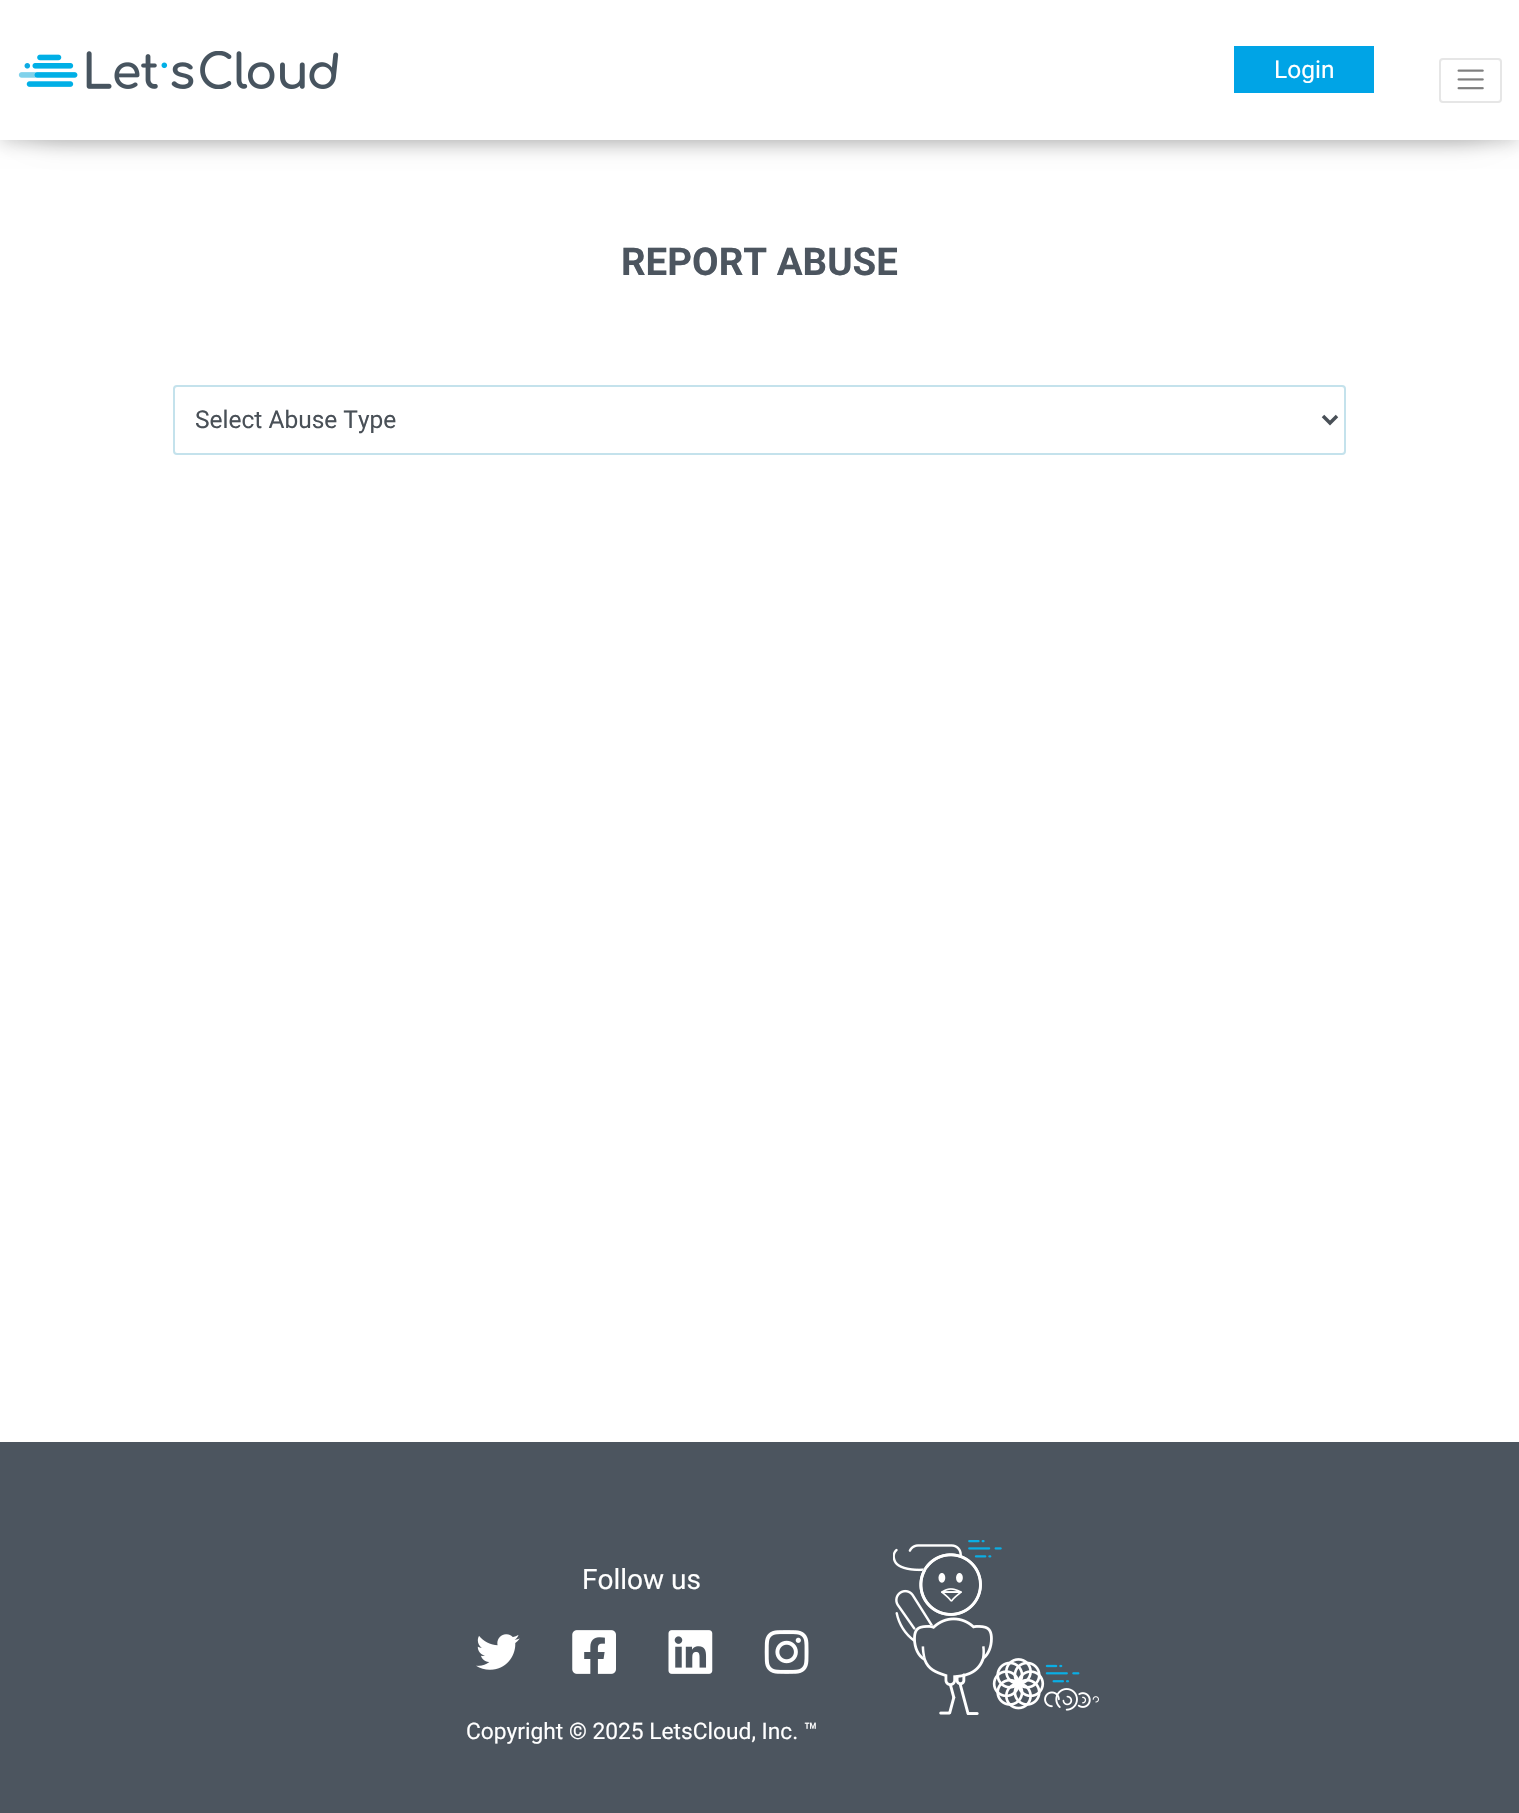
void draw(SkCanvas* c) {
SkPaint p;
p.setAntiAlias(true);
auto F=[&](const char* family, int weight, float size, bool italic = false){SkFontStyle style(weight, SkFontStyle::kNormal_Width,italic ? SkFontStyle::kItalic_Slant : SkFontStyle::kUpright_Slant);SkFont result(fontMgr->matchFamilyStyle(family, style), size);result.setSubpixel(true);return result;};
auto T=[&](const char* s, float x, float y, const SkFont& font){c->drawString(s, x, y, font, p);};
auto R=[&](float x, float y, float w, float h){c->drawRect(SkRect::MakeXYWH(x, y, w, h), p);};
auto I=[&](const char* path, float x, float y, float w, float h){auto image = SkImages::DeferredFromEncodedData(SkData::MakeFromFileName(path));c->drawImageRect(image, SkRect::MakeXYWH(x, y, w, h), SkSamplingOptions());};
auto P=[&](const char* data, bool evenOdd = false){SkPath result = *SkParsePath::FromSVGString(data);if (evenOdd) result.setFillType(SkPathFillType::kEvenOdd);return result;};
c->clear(0xffffffff);
p.setColor(0x33000000);
p.setMaskFilter(SkMaskFilter::MakeBlur(kNormal_SkBlurStyle, 13));
c->drawRoundRect(SkRect::MakeXYWH(0,18,1519,122),61,61,p);
p.setMaskFilter(nullptr);
p.setMaskFilter(SkMaskFilter::MakeBlur(kNormal_SkBlurStyle, 9));
c->drawRect(SkRect::MakeXYWH(0,2,1519,140),p);
p.setMaskFilter(nullptr);
p.setColor(0xffffffff);
R(0,0,1519,140);
I("1.png",18,51,321,38);
p.setColor(0xff00a4e6);
R(1234,46,140,47);
auto f1 = F("Roboto",400,24.5);
p.setColor(0xffffffff);
T("Login",1274,78,f1);
p.setStroke(true);
p.setStrokeWidth(2);
p.setColor(0xffe6e6e6);
c->drawRoundRect(SkRect::MakeXYWH(1440,59,61,43),3,3,p);
I("2.png",1457,69,27,21);
auto f2 = F("Roboto",700,38.5);
p.setStroke(false);
p.setColor(0xff4c555f);
T("REPORT ABUSE",621,275,f2);
p.setStroke(true);
p.setColor(0xffc4e2ec);
c->drawRoundRect(SkRect::MakeXYWH(174,386,1171,68),3,3,p);
p.setStrokeWidth(3.5);
p.setColor(0xff495057);
c->drawPath(P("M1323 416l7 7l7-7"),p);
p.setStroke(false);
T("Select Abuse Type",195,428,f1);
p.setColor(0xff4c555f);
R(0,1442,1519,371);
auto f3 = F("Roboto",400,28);
p.setColor(0xffffffff);
T("Follow us",582,1589,f3);
I("3.png",476,1634,44,36);
I("4.png",572,1630,44,44);
I("5.png",668,1630,45,44);
I("6.png",764,1630,45,44);
auto f4 = F("Roboto",400,22.75);
T("Copyright © 2025 LetsCloud, Inc. ™",466,1739,f4);
I("7.png",893,1540,206,175);
}
